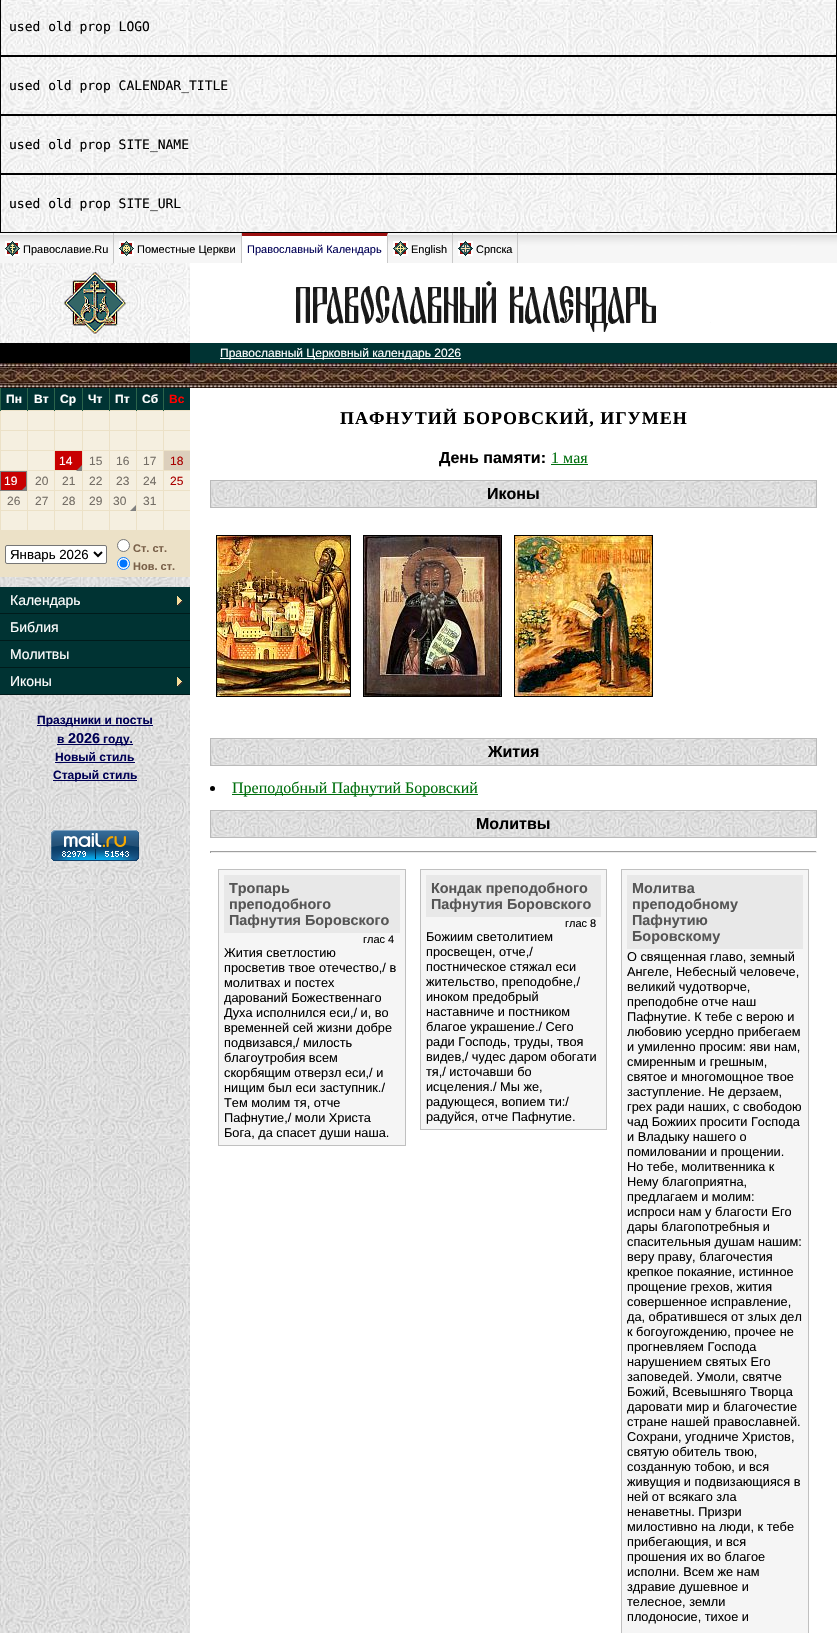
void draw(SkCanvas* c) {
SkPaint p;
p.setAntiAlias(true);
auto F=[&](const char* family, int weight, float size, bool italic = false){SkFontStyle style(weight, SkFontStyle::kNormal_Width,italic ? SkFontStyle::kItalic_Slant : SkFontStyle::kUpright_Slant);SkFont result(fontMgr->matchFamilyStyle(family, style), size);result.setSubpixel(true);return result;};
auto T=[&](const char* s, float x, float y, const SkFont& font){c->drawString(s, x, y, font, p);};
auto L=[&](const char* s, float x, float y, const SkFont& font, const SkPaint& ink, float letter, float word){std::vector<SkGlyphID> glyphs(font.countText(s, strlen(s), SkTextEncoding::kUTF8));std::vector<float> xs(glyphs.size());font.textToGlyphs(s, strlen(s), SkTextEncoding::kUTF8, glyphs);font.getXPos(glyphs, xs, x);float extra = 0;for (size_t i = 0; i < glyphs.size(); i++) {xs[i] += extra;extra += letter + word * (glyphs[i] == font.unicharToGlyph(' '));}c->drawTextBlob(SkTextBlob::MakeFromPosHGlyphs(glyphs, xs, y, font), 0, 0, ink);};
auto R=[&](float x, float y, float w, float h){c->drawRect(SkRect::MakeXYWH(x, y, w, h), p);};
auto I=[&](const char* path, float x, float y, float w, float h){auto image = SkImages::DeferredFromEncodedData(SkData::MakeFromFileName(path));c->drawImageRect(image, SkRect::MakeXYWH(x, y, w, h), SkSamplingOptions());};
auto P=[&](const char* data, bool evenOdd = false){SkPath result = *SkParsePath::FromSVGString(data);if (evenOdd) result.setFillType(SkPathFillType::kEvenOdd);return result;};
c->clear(0xffffffff);
I("1.png",0,0,836,343);
p.setStroke(true);
p.setStrokeWidth(1);
p.setColor(0xff000000);
c->drawRect(SkRect::MakeXYWH(.5,-.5,836,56),p);
auto f1 = F("DejaVu Sans Mono",400,13);
p.setStroke(false);
T("used old prop LOGO",9,31,f1);
p.setStroke(true);
c->drawRect(SkRect::MakeXYWH(.5,56.5,836,58),p);
p.setStroke(false);
T("used old prop CALENDAR_TITLE",9,90,f1);
p.setStroke(true);
c->drawRect(SkRect::MakeXYWH(.5,115.5,836,58),p);
p.setStroke(false);
T("used old prop SITE_NAME",9,149,f1);
p.setStroke(true);
c->drawRect(SkRect::MakeXYWH(.5,174.5,836,58),p);
p.setStroke(false);
T("used old prop SITE_URL",9,208,f1);
I("2.png",0,233,837,30);
p.setColor(0xffc9c9c9);
R(113,233,1,30);
I("3.png",5,241,15,15);
auto f2 = F("Liberation Sans",400,11);
p.setColor(0xff000000);
T("Православие.Ru",23,253,f2);
p.setColor(0xffc9c9c9);
R(241,233,1,30);
I("4.png",119,241,15,15);
p.setColor(0xff000000);
T("Поместные Церкви",137,253,f2);
p.setColor(0xffffffff);
R(242,233,146,30);
p.setColor(0xff9c1010);
c->drawPath(P("M242 233h146l-1 3h-145z"),p);
p.setColor(0xffc9c9c9);
c->drawPath(P("M388 233v30h-1v-27z"),p);
p.setColor(0xff000055);
T("Православный Календарь",247,253,f2);
p.setColor(0xffc9c9c9);
R(452,233,1,30);
I("5.png",393,241,15,15);
p.setColor(0xff000000);
T("English",411,253,f2);
p.setColor(0xffc9c9c9);
R(517,233,1,30);
I("6.png",458,241,15,15);
p.setColor(0xff000000);
T("Српска",476,253,f2);
I("7.png",64,272,62,62);
p.setColor(0xffffffff);
R(190,263,646,80);
I("8.png",296,281,415,51);
p.setColor(0xff000000);
R(0,343,190,20);
p.setColor(0xff003333);
R(190,343,647,20);
p.setColor(0xffffffff);
R(220,358,241,1);
auto f3 = F("Liberation Sans",400,12);
T("Православный Церковный календарь 2026",220,357,f3);
I("9.png",0,363,837,25);
I("10.png",0,577,190,1056);
p.setColor(0xff003333);
R(1,388,26,22);
p.setColor(0xffece1c7);
R(0,410,190,1);
p.setColor(0xff2b644b);
R(0,388,1,23);
auto f4 = F("Liberation Sans",700,12);
p.setColor(0xffffffff);
T("Пн",6,403,f4);
p.setColor(0xff003333);
R(28,388,26,22);
p.setColor(0xff2b644b);
R(27,388,1,23);
p.setColor(0xffffffff);
T("Вт",34,403,f4);
p.setColor(0xff003333);
R(55,388,27,22);
p.setColor(0xff2b644b);
R(54,388,1,23);
p.setColor(0xffffffff);
T("Ср",60,403,f4);
p.setColor(0xff003333);
R(83,388,26,22);
p.setColor(0xff2b644b);
R(82,388,1,23);
p.setColor(0xffffffff);
T("Чт",88,403,f4);
p.setColor(0xff003333);
R(110,388,26,22);
p.setColor(0xff2b644b);
R(109,388,1,23);
p.setColor(0xffffffff);
T("Пт",115,403,f4);
p.setColor(0xff003333);
R(137,388,26,22);
p.setColor(0xff2b644b);
R(136,388,1,23);
p.setColor(0xffffffff);
T("Сб",142,403,f4);
p.setColor(0xff003333);
R(164,388,26,22);
p.setColor(0xff2b644b);
R(163,388,1,23);
p.setColor(0xffff0000);
T("Вс",169,403,f4);
p.setColor(0xfff5efe0);
R(1,411,26,19);
p.setColor(0xffece1c7);
R(0,430,190,1);
R(0,411,1,20);
p.setColor(0xfff5efe0);
R(28,411,26,19);
p.setColor(0xffece1c7);
R(27,411,1,20);
p.setColor(0xfff5efe0);
R(55,411,27,19);
p.setColor(0xffece1c7);
R(54,411,1,20);
p.setColor(0xfff5efe0);
R(83,411,26,19);
p.setColor(0xffece1c7);
R(82,411,1,20);
p.setColor(0xfff5efe0);
R(110,411,26,19);
p.setColor(0xffece1c7);
R(109,411,1,20);
p.setColor(0xfff5efe0);
R(137,411,26,19);
p.setColor(0xffece1c7);
R(136,411,1,20);
p.setColor(0xfff5efe0);
R(164,411,26,19);
p.setColor(0xffece1c7);
R(163,411,1,20);
p.setColor(0xfff5efe0);
R(1,431,26,19);
p.setColor(0xffece1c7);
R(0,450,190,1);
R(0,431,1,20);
p.setColor(0xfff5efe0);
R(28,431,26,19);
p.setColor(0xffece1c7);
R(27,431,1,20);
p.setColor(0xfff5efe0);
R(55,431,27,19);
p.setColor(0xffece1c7);
R(54,431,1,20);
p.setColor(0xfff5efe0);
R(83,431,26,19);
p.setColor(0xffece1c7);
R(82,431,1,20);
p.setColor(0xfff5efe0);
R(110,431,26,19);
p.setColor(0xffece1c7);
R(109,431,1,20);
p.setColor(0xfff5efe0);
R(137,431,26,19);
p.setColor(0xffece1c7);
R(136,431,1,20);
p.setColor(0xfff5efe0);
R(164,431,26,19);
p.setColor(0xffece1c7);
R(163,431,1,20);
p.setColor(0xfff5efe0);
R(1,451,26,19);
p.setColor(0xffece1c7);
R(0,470,190,1);
R(0,451,1,20);
p.setColor(0xfff5efe0);
R(28,451,26,19);
p.setColor(0xffece1c7);
R(27,451,1,20);
p.setColor(0xffc80000);
R(55,451,27,19);
p.setColor(0xffece1c7);
R(54,451,1,20);
p.setColor(0xffffffff);
T("14",59,465,f3);
p.setColor(0xffc80000);
c->drawRect(SkRect::MakeXYWH(.5,471.5,26,19),p);
p.setStroke(true);
p.setColor(0xff808080);
c->drawRect(SkRect::MakeXYWH(.5,471.5,26,19),p);
p.setStroke(false);
p.setColor(0xfff5efe0);
R(28,471,26,19);
p.setColor(0xffece1c7);
R(27,490,163,1);
R(27,471,1,20);
p.setColor(0xff746e66);
T("20",35,485,f3);
p.setColor(0xfff5efe0);
R(55,471,27,19);
p.setColor(0xffece1c7);
R(54,471,1,20);
p.setColor(0xff746e66);
T("21",62,485,f3);
p.setColor(0xff808080);
c->drawPath(P("M82 471h-6l6-6zm-55 20h-6l6-6z"),p);
p.setColor(0xfff5efe0);
R(83,451,26,19);
p.setColor(0xffece1c7);
R(82,451,1,20);
p.setColor(0xff746e66);
T("15",89,465,f3);
p.setColor(0xfff5efe0);
R(110,451,26,19);
p.setColor(0xffece1c7);
R(109,451,1,20);
p.setColor(0xff746e66);
T("16",116,465,f3);
p.setColor(0xfff5efe0);
R(137,451,26,19);
p.setColor(0xffece1c7);
R(136,451,1,20);
p.setColor(0xff746e66);
T("17",143,465,f3);
p.setColor(0xffdccfbc);
R(164,451,26,19);
p.setColor(0xffece1c7);
R(163,451,1,20);
p.setColor(0xffa90000);
T("18",170,465,f3);
p.setColor(0xffffffff);
T("19",4,485,f3);
p.setColor(0xfff5efe0);
R(83,471,26,19);
p.setColor(0xffece1c7);
R(82,471,1,20);
p.setColor(0xff746e66);
T("22",89,485,f3);
p.setColor(0xfff5efe0);
R(110,471,26,19);
p.setColor(0xffece1c7);
R(109,471,1,20);
p.setColor(0xff746e66);
T("23",116,485,f3);
p.setColor(0xfff5efe0);
R(137,471,26,19);
p.setColor(0xffece1c7);
R(136,471,1,20);
p.setColor(0xff746e66);
T("24",143,485,f3);
p.setColor(0xfff5efe0);
R(164,471,26,19);
p.setColor(0xffece1c7);
R(163,471,1,20);
p.setColor(0xffa90000);
T("25",170,485,f3);
p.setColor(0xfff5efe0);
R(1,491,26,19);
p.setColor(0xffece1c7);
R(0,510,190,1);
R(0,491,1,20);
p.setColor(0xff746e66);
T("26",7,505,f3);
p.setColor(0xfff5efe0);
R(28,491,26,19);
p.setColor(0xffece1c7);
R(27,491,1,20);
p.setColor(0xff746e66);
T("27",35,505,f3);
p.setColor(0xfff5efe0);
R(55,491,27,19);
p.setColor(0xffece1c7);
R(54,491,1,20);
p.setColor(0xff746e66);
T("28",62,505,f3);
p.setColor(0xfff5efe0);
R(83,491,26,19);
p.setColor(0xffece1c7);
R(82,491,1,20);
p.setColor(0xff746e66);
T("29",89,505,f3);
p.setColor(0xfff5efe0);
R(110,491,26,19);
p.setColor(0xffece1c7);
R(109,491,1,20);
p.setColor(0xff746e66);
T("30",113,505,f3);
p.setColor(0xff808080);
c->drawPath(P("M136 511h-6l6-6z"),p);
p.setColor(0xfff5efe0);
R(137,491,26,19);
p.setColor(0xffece1c7);
R(136,491,1,20);
p.setColor(0xff746e66);
T("31",143,505,f3);
p.setColor(0xfff5efe0);
R(164,491,26,19);
p.setColor(0xffece1c7);
R(163,491,1,20);
p.setColor(0xfff5efe0);
R(1,511,26,19);
p.setColor(0xffece1c7);
R(0,530,190,47);
R(0,511,1,20);
p.setColor(0xfff5efe0);
R(28,511,26,19);
p.setColor(0xffece1c7);
R(27,511,1,20);
p.setColor(0xfff5efe0);
R(55,511,27,19);
p.setColor(0xffece1c7);
R(54,511,1,20);
p.setColor(0xfff5efe0);
R(83,511,26,19);
p.setColor(0xffece1c7);
R(82,511,1,20);
p.setColor(0xfff5efe0);
R(110,511,26,19);
p.setColor(0xffece1c7);
R(109,511,1,20);
p.setColor(0xfff5efe0);
R(137,511,26,19);
p.setColor(0xffece1c7);
R(136,511,1,20);
p.setColor(0xfff5efe0);
R(164,511,26,19);
p.setColor(0xffece1c7);
R(163,511,1,20);
p.setColor(0xffffffff);
c->drawRoundRect(SkRect::MakeXYWH(5.5,545.5,101,18),1.5,1.5,p);
p.setStroke(true);
p.setColor(0xff767676);
c->drawRoundRect(SkRect::MakeXYWH(5.5,545.5,101,18),1.5,1.5,p);
p.setStrokeWidth(2);
p.setColor(0xff000000);
c->drawPath(P("M94 552l4 4l4-4"),p);
auto f5 = F("Liberation Sans",400,13.25);
p.setStroke(false);
T("Январь 2026",10,559,f5);
p.setColor(0xffffffff);
c->drawCircle(123.5,545.5,6,p);
p.setStroke(true);
p.setStrokeWidth(1);
p.setColor(0xff767676);
c->drawCircle(123.5,545.5,6,p);
auto f6 = F("Liberation Sans",700,11);
p.setStroke(false);
p.setColor(0xff7a614a);
T("Ст. ст.",133,552,f6);
p.setColor(0xffffffff);
c->drawCircle(123.5,563.5,6,p);
p.setStroke(true);
p.setColor(0xff0075ff);
c->drawCircle(123.5,563.5,6,p);
p.setStroke(false);
c->drawCircle(123.5,563.5,4,p);
p.setColor(0xff7a614a);
T("Нов. ст.",133,570,f6);
p.setColor(0xff003333);
R(0,587,190,26);
I("11.png",177,596,6,10);
p.setColor(0xff001b1b);
R(0,613,190,1);
auto f7 = F("Liberation Sans",400,14);
p.setColor(0xffffffff);
T("Календарь",10,605,f7);
p.setColor(0xff003333);
R(0,614,190,26);
p.setColor(0xff001b1b);
R(0,640,190,1);
p.setColor(0xffffffff);
T("Библия",10,632,f7);
p.setColor(0xff003333);
R(0,641,190,26);
p.setColor(0xff001b1b);
R(0,667,190,1);
p.setColor(0xffffffff);
T("Молитвы",10,659,f7);
p.setColor(0xff003333);
R(0,668,190,26);
I("11.png",177,677,6,10);
p.setColor(0xff001b1b);
R(0,694,190,1);
p.setColor(0xffffffff);
T("Иконы",10,686,f7);
p.setColor(0xff000055);
R(37,725,116,1);
T("Праздники и посты",37,724,f4);
T("в",57,743,f4);
auto f8 = F("Liberation Sans",700,14.4);
T("2026",68,743,f8);
R(57,744,76,1);
T("году.",103,743,f4);
T("Новый стиль",55,761,f4);
R(55,762,80,1);
R(53,780,84,1);
T("Старый стиль",53,779,f4);
I("12.png",51,830,88,31);
auto f9 = F("Liberation Serif",700,18);
p.setColor(0xff000000);
L("ПАФНУТИЙ БОРОВСКИЙ, ИГУМЕН",340,424,f9,p,1,0);
auto f10 = F("Liberation Sans",700,16);
T("День памяти:",439,463,f10);
auto f11 = F("Liberation Serif",400,16);
p.setColor(0xff006f0d);
T("1 мая",551,463,f11);
R(551,464,37,1);
I("13.png",211,481,605,26);
p.setStroke(true);
p.setColor(0xffbababa);
c->drawRect(SkRect::MakeXYWH(210.5,480.5,606,27),p);
p.setStroke(false);
p.setColor(0xff000000);
T("Иконы",487,499,f10);
p.setStroke(true);
c->drawRect(SkRect::MakeXYWH(216.5,535.5,134,161),p);
I("14.png",217,536,133,160);
c->drawRect(SkRect::MakeXYWH(363.5,535.5,138,161),p);
I("15.png",364,536,137,160);
c->drawRect(SkRect::MakeXYWH(514.5,535.5,138,161),p);
I("16.png",515,536,137,160);
I("13.png",211,739,605,26);
p.setColor(0xffbababa);
c->drawRect(SkRect::MakeXYWH(210.5,738.5,606,27),p);
p.setStroke(false);
p.setColor(0xff000000);
T("Жития",488,757,f10);
c->drawCircle(212.5,788.5,2.5,p);
p.setColor(0xff006f0d);
R(232,794,246,1);
T("Преподобный Пафнутий Боровский",232,793,f11);
I("13.png",211,811,605,26);
p.setStroke(true);
p.setColor(0xffbababa);
c->drawRect(SkRect::MakeXYWH(210.5,810.5,606,27),p);
p.setStroke(false);
p.setColor(0xff000000);
T("Молитвы",476,829,f10);
p.setColor(0xff9f9f9f);
R(210,851,607,1);
p.setColor(0xffeeeeee);
R(816,851,1,2);
R(210,852,607,1);
p.setColor(0xff9f9f9f);
R(210,851,1,2);
p.setColor(0xfff5f5f5);
c->drawRect(SkRect::MakeXYWH(218.5,869.5,187,276),p);
p.setStroke(true);
p.setColor(0xffc0c0c0);
c->drawRect(SkRect::MakeXYWH(218.5,869.5,187,276),p);
p.setStroke(false);
p.setColor(0xffe8e8e8);
R(224,875,176,58);
p.setColor(0xff555555);
T("Тропарь",229,893,f8);
T("преподобного",229,909,f8);
T("Пафнутия Боровского",229,925,f8);
p.setColor(0xff000000);
T("глас 4",363,943,f2);
auto f12 = F("Liberation Sans",400,12.75);
T("Жития светлостию",224,957,f12);
T("просветив твое отечество,/ в",224,972,f12);
T("молитвах и постех",224,987,f12);
T("дарований Божественнаго",224,1002,f12);
T("Духа исполнился еси,/ и, во",224,1017,f12);
T("временней сей жизни добре",224,1032,f12);
T("подвизався,/ милость",224,1047,f12);
T("благоутробия всем",224,1062,f12);
T("скорбящим отверзл еси,/ и",224,1077,f12);
T("нищим был еси заступник./",224,1092,f12);
T("Тем молим тя, отче",224,1107,f12);
T("Пафнутие,/ моли Христа",224,1122,f12);
T("Бога, да спасет души наша.",224,1137,f12);
p.setColor(0xfff5f5f5);
c->drawRect(SkRect::MakeXYWH(420.5,869.5,186,260),p);
p.setStroke(true);
p.setColor(0xffc0c0c0);
c->drawRect(SkRect::MakeXYWH(420.5,869.5,186,260),p);
p.setStroke(false);
p.setColor(0xffe8e8e8);
R(426,875,175,42);
p.setColor(0xff555555);
T("Кондак преподобного",431,893,f8);
T("Пафнутия Боровского",431,909,f8);
p.setColor(0xff000000);
T("глас 8",565,927,f2);
T("Божиим светолитием",426,941,f12);
T("просвещен, отче,/",426,956,f12);
T("постническое стяжал еси",426,971,f12);
T("жительство, преподобне,/",426,986,f12);
T("иноком предобрый",426,1001,f12);
T("наставниче и постником",426,1016,f12);
T("благое украшение./ Сего",426,1031,f12);
T("ради Господь, труды, твоя",426,1046,f12);
T("видев,/ чудес даром обогати",426,1061,f12);
T("тя,/ источавши бо",426,1076,f12);
T("исцеления./ Мы же,",426,1091,f12);
T("радующеся, вопием ти:/",426,1106,f12);
T("радуйся, отче Пафнутие.",426,1121,f12);
p.setColor(0xfff5f5f5);
c->drawRect(SkRect::MakeXYWH(621.5,869.5,187,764),p);
p.setStroke(true);
p.setColor(0xffc0c0c0);
c->drawRect(SkRect::MakeXYWH(621.5,869.5,187,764),p);
p.setStroke(false);
p.setColor(0xffe8e8e8);
R(627,875,176,74);
p.setColor(0xff555555);
T("Молитва",632,893,f8);
T("преподобному",632,909,f8);
T("Пафнутию",632,925,f8);
T("Боровскому",632,941,f8);
p.setColor(0xff000000);
T("О священная главо, земный",627,961,f12);
T("Ангеле, Небесный человече,",627,976,f12);
T("великий чудотворче,",627,991,f12);
T("преподобне отче наш",627,1006,f12);
T("Пафнутие. К тебе с верою и",627,1021,f12);
T("любовию усердно прибегаем",627,1036,f12);
T("и умиленно просим: яви нам,",627,1051,f12);
T("смиренным и грешным,",627,1066,f12);
T("святое и многомощное твое",627,1081,f12);
T("заступление. Не дерзаем,",627,1096,f12);
T("грех ради наших, с свободою",627,1111,f12);
T("чад Божиих просити Господа",627,1126,f12);
T("и Владыку нашего о",627,1141,f12);
T("помиловании и прощении.",627,1156,f12);
T("Но тебе, молитвенника к",627,1171,f12);
T("Нему благоприятна,",627,1186,f12);
T("предлагаем и молим:",627,1201,f12);
T("испроси нам у благости Его",627,1216,f12);
T("дары благопотребныя и",627,1231,f12);
T("спасительныя душам нашим:",627,1246,f12);
T("веру праву, благочестия",627,1261,f12);
T("крепкое покаяние, истинное",627,1276,f12);
T("прощение грехов, жития",627,1291,f12);
T("совершенное исправление,",627,1306,f12);
T("да, обратившеся от злых дел",627,1321,f12);
T("к богоугождению, прочее не",627,1336,f12);
T("прогневляем Господа",627,1351,f12);
T("нарушением святых Его",627,1366,f12);
T("заповедей. Умоли, святче",627,1381,f12);
T("Божий, Всевышняго Творца",627,1396,f12);
T("даровати мир и благочестие",627,1411,f12);
T("стране нашей православней.",627,1426,f12);
T("Сохрани, угодниче Христов,",627,1441,f12);
T("святую обитель твою,",627,1456,f12);
T("созданную тобою, и вся",627,1471,f12);
T("живущия и подвизающияся в",627,1486,f12);
T("ней от всякаго зла",627,1501,f12);
T("ненаветны. Призри",627,1516,f12);
T("милостивно на люди, к тебе",627,1531,f12);
T("прибегающия, и вся",627,1546,f12);
T("прошения их во благое",627,1561,f12);
T("исполни. Всем же нам",627,1576,f12);
T("здравие душевное и",627,1591,f12);
T("телесное, земли",627,1606,f12);
T("плодоносие, тихое и",627,1621,f12);
}
